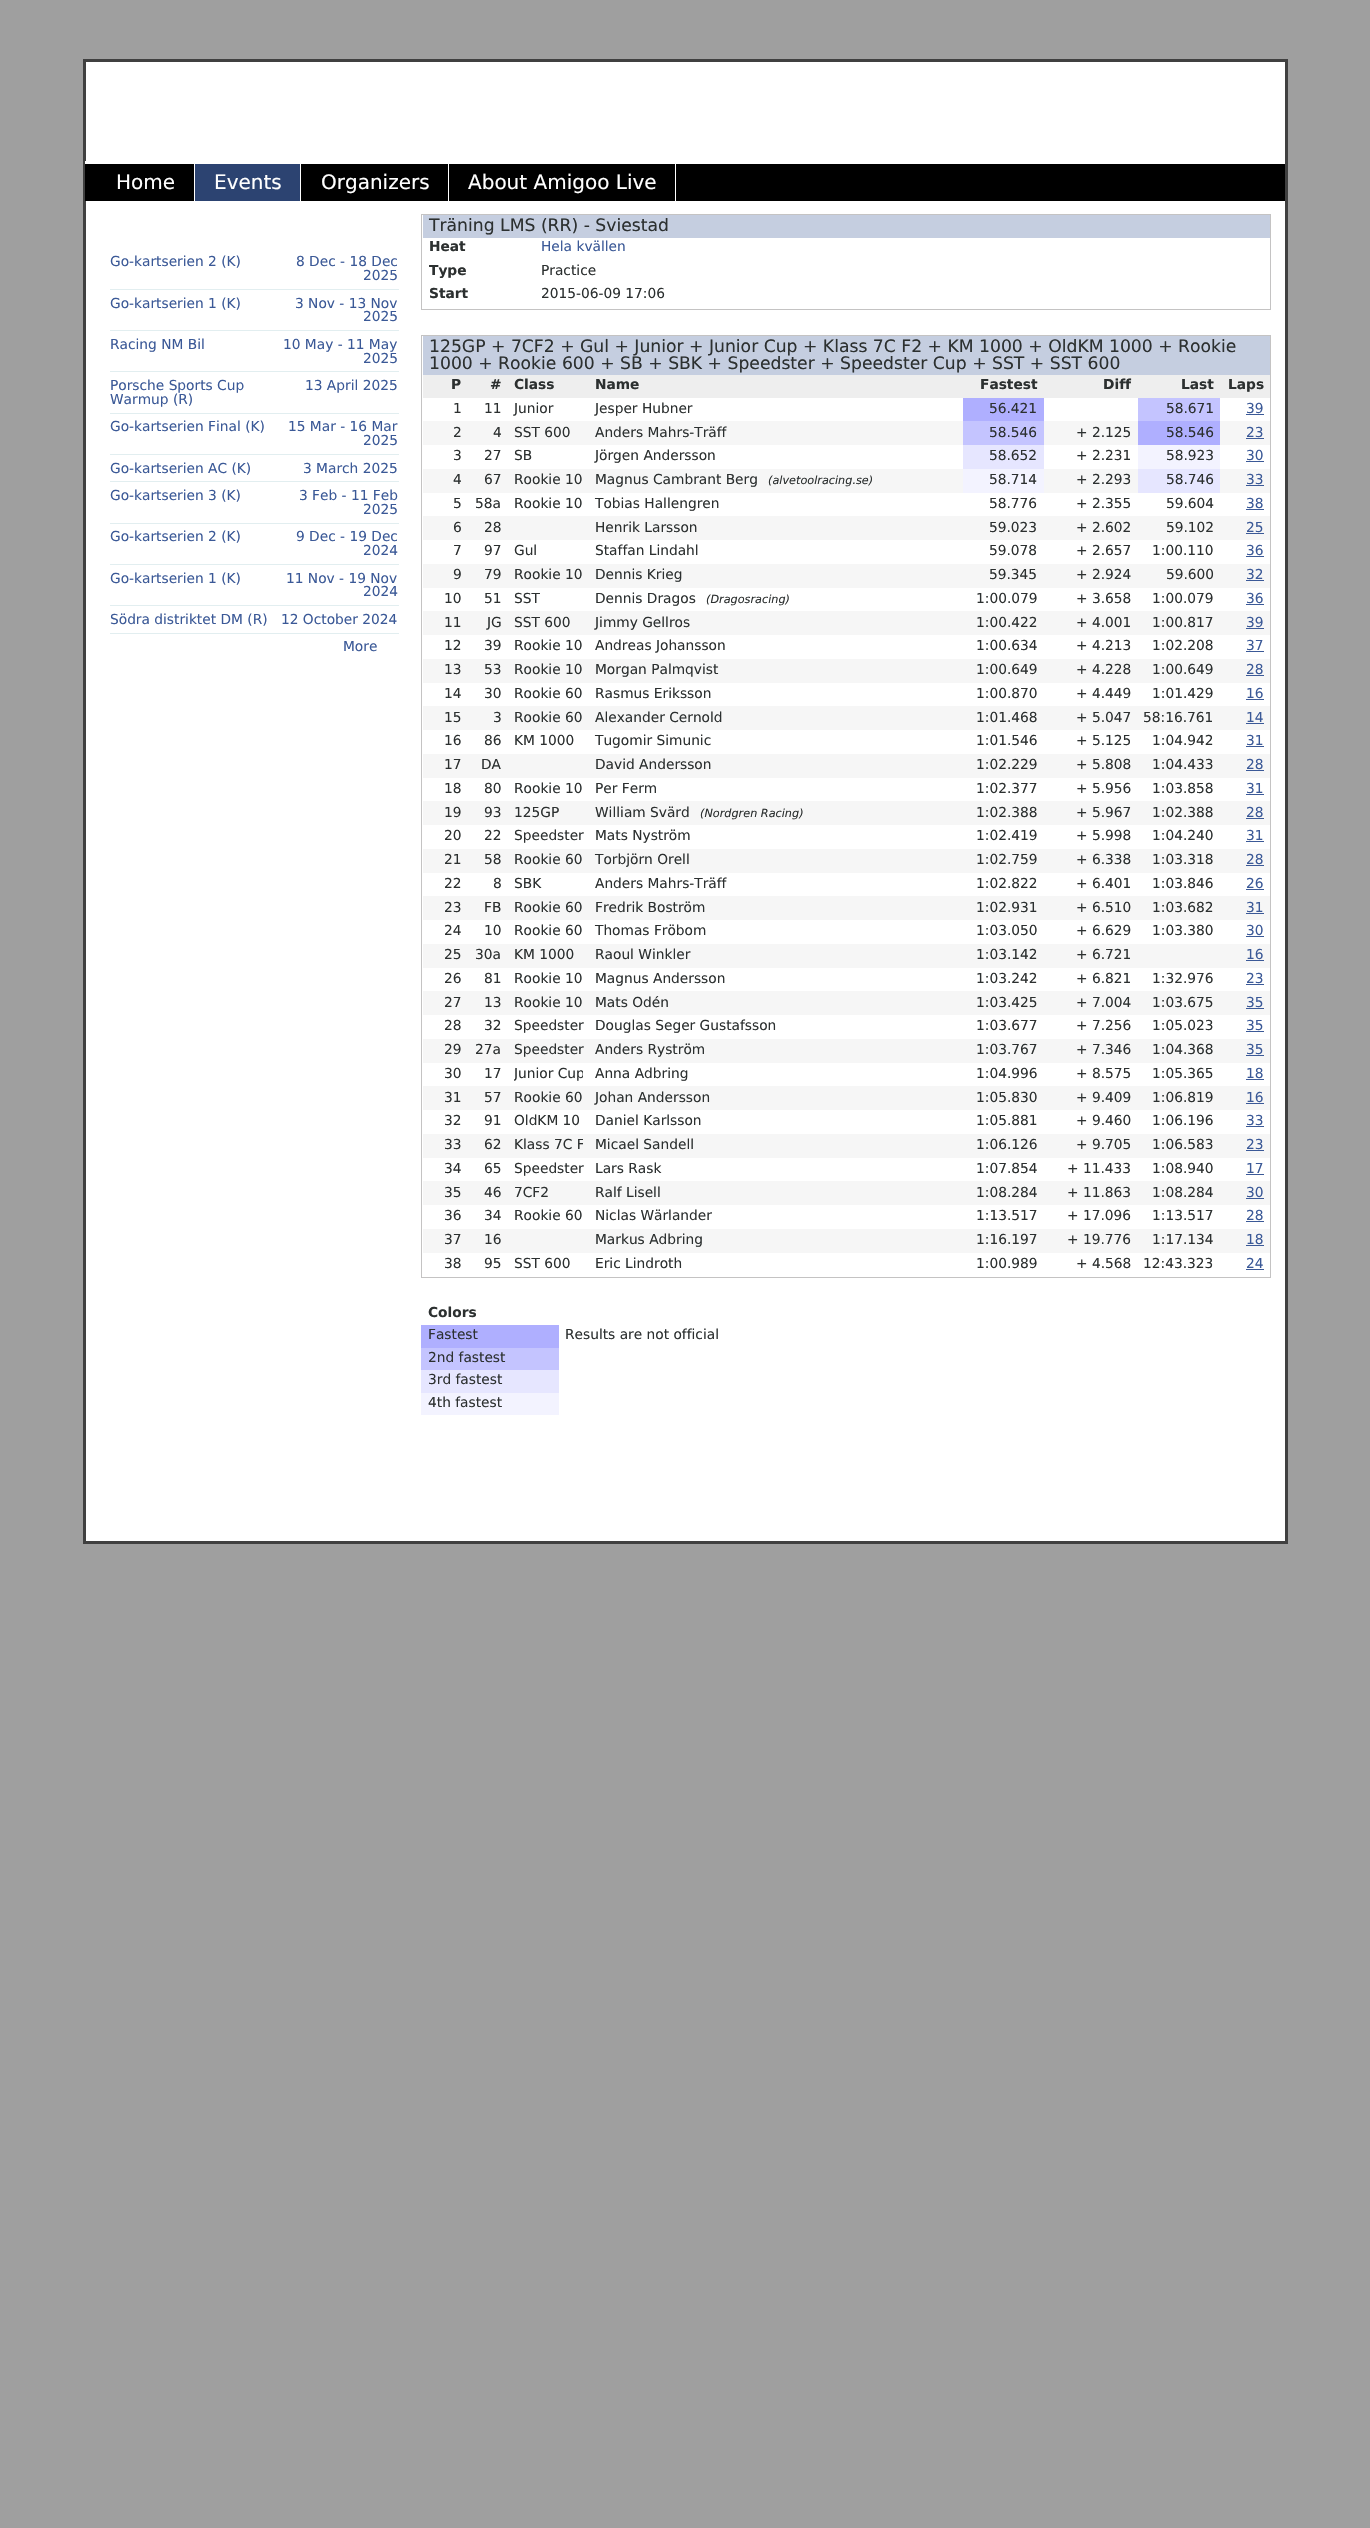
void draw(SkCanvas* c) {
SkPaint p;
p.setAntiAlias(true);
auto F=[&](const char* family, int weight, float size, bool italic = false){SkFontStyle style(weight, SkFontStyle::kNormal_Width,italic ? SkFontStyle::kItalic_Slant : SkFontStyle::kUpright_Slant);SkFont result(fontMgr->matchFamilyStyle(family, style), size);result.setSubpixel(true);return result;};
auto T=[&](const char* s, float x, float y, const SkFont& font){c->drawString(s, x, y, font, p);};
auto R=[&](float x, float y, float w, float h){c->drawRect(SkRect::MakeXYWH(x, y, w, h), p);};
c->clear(0xff9f9f9f);
p.setColor(0xffffffff);
R(86,62,1199,1479);
p.setColor(0xff404040);
R(83,59,1205,3);
R(1285,59,3,142);
R(83,59,3,142);
p.setColor(0xff000000);
R(85,164,1200,37);
p.setColor(0xffffffff);
R(85,161,1,3);
R(194,164,1,37);
auto f1 = F("DejaVu Sans",400,20);
T("Home",116,189,f1);
p.setColor(0xff2c4371);
R(195,164,105,37);
p.setColor(0xffffffff);
R(300,164,1,37);
T("Events",214,189,f1);
R(448,164,1,37);
T("Organizers",321,189,f1);
R(675,164,1,37);
T("About Amigoo Live",468,189,f1);
p.setColor(0xff404040);
R(1285,201,3,1343);
R(83,201,3,1290);
auto f2 = F("DejaVu Sans",400,13.75);
p.setColor(0xff3b5997);
T("Go-kartserien 2 (K)",110,266,f2);
p.setColor(0xffe2eef0);
R(110,289,289,1);
p.setColor(0xff3b5997);
T("8 Dec - 18 Dec",296,266,f2);
T("2025",363,280,f2);
T("Go-kartserien 1 (K)",110,308,f2);
p.setColor(0xffe2eef0);
R(110,330,289,1);
p.setColor(0xff3b5997);
T("3 Nov - 13 Nov",295,308,f2);
T("2025",363,321,f2);
T("Racing NM Bil",110,349,f2);
p.setColor(0xffe2eef0);
R(110,371,289,1);
p.setColor(0xff3b5997);
T("10 May - 11 May",283,349,f2);
T("2025",363,363,f2);
T("Porsche Sports Cup",110,390,f2);
T("Warmup (R)",110,404,f2);
p.setColor(0xffe2eef0);
R(110,413,289,1);
p.setColor(0xff3b5997);
T("13 April 2025",305,390,f2);
T("Go-kartserien Final (K)",110,431,f2);
p.setColor(0xffe2eef0);
R(110,454,289,1);
p.setColor(0xff3b5997);
T("15 Mar - 16 Mar",288,431,f2);
T("2025",363,445,f2);
T("Go-kartserien AC (K)",110,473,f2);
p.setColor(0xffe2eef0);
R(110,481,289,1);
p.setColor(0xff3b5997);
T("3 March 2025",303,473,f2);
T("Go-kartserien 3 (K)",110,500,f2);
p.setColor(0xffe2eef0);
R(110,523,289,1);
p.setColor(0xff3b5997);
T("3 Feb - 11 Feb",299,500,f2);
T("2025",363,514,f2);
T("Go-kartserien 2 (K)",110,541,f2);
p.setColor(0xffe2eef0);
R(110,564,289,1);
p.setColor(0xff3b5997);
T("9 Dec - 19 Dec",296,541,f2);
T("2024",363,555,f2);
T("Go-kartserien 1 (K)",110,583,f2);
p.setColor(0xffe2eef0);
R(110,605,289,1);
p.setColor(0xff3b5997);
T("11 Nov - 19 Nov",286,583,f2);
T("2024",363,596,f2);
T("Södra distriktet DM (R)",110,624,f2);
p.setColor(0xffe2eef0);
R(110,633,289,1);
p.setColor(0xff3b5997);
T("12 October 2024",281,624,f2);
T("More",343,651,f2);
p.setStroke(true);
p.setStrokeWidth(1);
p.setColor(0xffc4c3c3);
c->drawRect(SkRect::MakeXYWH(421.5,214.5,849,95),p);
p.setStroke(false);
p.setColor(0xffc5cee0);
R(423,215,847,23);
auto f3 = F("DejaVu Sans",400,17.2);
p.setColor(0xff2c3030);
T("Träning LMS (RR) - Sviestad",429,231,f3);
auto f4 = F("DejaVu Sans",700,13.75);
T("Heat",429,251,f4);
p.setColor(0xff3b5997);
T("Hela kvällen",541,251,f2);
p.setColor(0xff2c3030);
T("Type",429,275,f4);
T("Practice",541,275,f2);
T("Start",429,298,f4);
T("2015-06-09 17:06",541,298,f2);
p.setStroke(true);
p.setColor(0xffc4c3c3);
c->drawRect(SkRect::MakeXYWH(421.5,335.5,849,942),p);
p.setStroke(false);
p.setColor(0xffc5cee0);
R(423,336,847,39);
p.setColor(0xff2c3030);
T("125GP + 7CF2 + Gul + Junior + Junior Cup + Klass 7C F2 + KM 1000 + OldKM 1000 + Rookie",429,352,f3);
T("1000 + Rookie 600 + SB + SBK + Speedster + Speedster Cup + SST + SST 600",429,369,f3);
p.setColor(0xffeeeeee);
R(423,375,85,23);
R(508,375,81,23);
p.setColor(0xff2c3030);
T("Class",514,389,f4);
p.setColor(0xffeeeeee);
R(589,375,681,23);
p.setColor(0xff2c3030);
T("Diff",1103,389,f4);
T("P",451,389,f4);
T("#",490,389,f4);
T("Name",595,389,f4);
T("Fastest",980,389,f4);
T("Last",1181,389,f4);
T("Laps",1228,389,f4);
T("1",453,413,f2);
T("11",484,413,f2);
T("Junior",514,413,f2);
T("Jesper Hubner",595,413,f2);
p.setColor(0xffafafff);
R(963,398,81,23);
p.setColor(0xff2c3030);
T("56.421",989,413,f2);
p.setColor(0xffc4c4ff);
R(1138,398,82,23);
p.setColor(0xff2c3030);
T("58.671",1166,413,f2);
p.setColor(0xff3b5997);
T("39",1246,413,f2);
R(1246,414,18,1);
p.setColor(0xfff6f6f6);
R(423,421,847,24);
p.setColor(0xff2c3030);
T("2",453,437,f2);
T("4",493,437,f2);
T("SST 600",514,437,f2);
T("Anders Mahrs-Träff",595,437,f2);
p.setColor(0xffc4c4ff);
R(963,421,81,24);
p.setColor(0xff2c3030);
T("58.546",989,437,f2);
T("+ 2.125",1076,437,f2);
p.setColor(0xffafafff);
R(1138,421,82,24);
p.setColor(0xff2c3030);
T("58.546",1166,437,f2);
p.setColor(0xff3b5997);
T("23",1246,437,f2);
R(1246,438,18,1);
p.setColor(0xff2c3030);
T("3",453,460,f2);
T("27",484,460,f2);
T("SB",514,460,f2);
T("Jörgen Andersson",595,460,f2);
p.setColor(0xffe6e6ff);
R(963,445,81,24);
p.setColor(0xff2c3030);
T("58.652",989,460,f2);
T("+ 2.231",1076,460,f2);
p.setColor(0xfff3f3ff);
R(1138,445,82,24);
p.setColor(0xff2c3030);
T("58.923",1166,460,f2);
p.setColor(0xff3b5997);
T("30",1246,460,f2);
R(1246,461,18,1);
p.setColor(0xfff6f6f6);
R(423,469,847,24);
p.setColor(0xff2c3030);
T("4",453,484,f2);
T("67",484,484,f2);
T("Rookie 10",514,484,f2);
T("Magnus Cambrant Berg",595,484,f2);
auto f5 = F("DejaVu Sans",400,11.25,true);
T("(alvetoolracing.se)",768,484,f5);
p.setColor(0xfff3f3ff);
R(963,469,81,24);
p.setColor(0xff2c3030);
T("58.714",989,484,f2);
T("+ 2.293",1076,484,f2);
p.setColor(0xffe6e6ff);
R(1138,469,82,24);
p.setColor(0xff2c3030);
T("58.746",1166,484,f2);
p.setColor(0xff3b5997);
T("33",1246,484,f2);
R(1246,485,18,1);
p.setColor(0xff2c3030);
T("5",453,508,f2);
T("58a",475,508,f2);
T("Rookie 10",514,508,f2);
T("Tobias Hallengren",595,508,f2);
T("58.776",989,508,f2);
T("+ 2.355",1076,508,f2);
T("59.604",1166,508,f2);
p.setColor(0xff3b5997);
T("38",1246,508,f2);
R(1246,509,18,1);
p.setColor(0xfff6f6f6);
R(423,516,847,24);
p.setColor(0xff2c3030);
T("6",453,532,f2);
T("28",484,532,f2);
T("Henrik Larsson",595,532,f2);
T("59.023",989,532,f2);
T("+ 2.602",1076,532,f2);
T("59.102",1166,532,f2);
p.setColor(0xff3b5997);
T("25",1246,532,f2);
R(1246,533,18,1);
p.setColor(0xff2c3030);
T("7",453,555,f2);
T("97",484,555,f2);
T("Gul",514,555,f2);
T("Staffan Lindahl",595,555,f2);
T("59.078",989,555,f2);
T("+ 2.657",1076,555,f2);
T("1:00.110",1152,555,f2);
p.setColor(0xff3b5997);
T("36",1246,555,f2);
R(1246,556,18,1);
p.setColor(0xfff6f6f6);
R(423,564,847,24);
p.setColor(0xff2c3030);
T("9",453,579,f2);
T("79",484,579,f2);
T("Rookie 10",514,579,f2);
T("Dennis Krieg",595,579,f2);
T("59.345",989,579,f2);
T("+ 2.924",1076,579,f2);
T("59.600",1166,579,f2);
p.setColor(0xff3b5997);
T("32",1246,579,f2);
R(1246,580,18,1);
p.setColor(0xff2c3030);
T("10",444,603,f2);
T("51",484,603,f2);
T("SST",514,603,f2);
T("Dennis Dragos",595,603,f2);
T("(Dragosracing)",706,603,f5);
T("1:00.079",976,603,f2);
T("+ 3.658",1076,603,f2);
T("1:00.079",1152,603,f2);
p.setColor(0xff3b5997);
T("36",1246,603,f2);
R(1246,604,18,1);
p.setColor(0xfff6f6f6);
R(423,611,847,24);
p.setColor(0xff2c3030);
T("11",444,627,f2);
T("JG",487,627,f2);
T("SST 600",514,627,f2);
T("Jimmy Gellros",595,627,f2);
T("1:00.422",976,627,f2);
T("+ 4.001",1076,627,f2);
T("1:00.817",1152,627,f2);
p.setColor(0xff3b5997);
T("39",1246,627,f2);
R(1246,628,18,1);
p.setColor(0xff2c3030);
T("12",444,650,f2);
T("39",484,650,f2);
T("Rookie 10",514,650,f2);
T("Andreas Johansson",595,650,f2);
T("1:00.634",976,650,f2);
T("+ 4.213",1076,650,f2);
T("1:02.208",1152,650,f2);
p.setColor(0xff3b5997);
T("37",1246,650,f2);
R(1246,651,18,1);
p.setColor(0xfff6f6f6);
R(423,659,847,24);
p.setColor(0xff2c3030);
T("13",444,674,f2);
T("53",484,674,f2);
T("Rookie 10",514,674,f2);
T("Morgan Palmqvist",595,674,f2);
T("1:00.649",976,674,f2);
T("+ 4.228",1076,674,f2);
T("1:00.649",1152,674,f2);
p.setColor(0xff3b5997);
T("28",1246,674,f2);
R(1246,675,18,1);
p.setColor(0xff2c3030);
T("14",444,698,f2);
T("30",484,698,f2);
T("Rookie 60",514,698,f2);
T("Rasmus Eriksson",595,698,f2);
T("1:00.870",976,698,f2);
T("+ 4.449",1076,698,f2);
T("1:01.429",1152,698,f2);
p.setColor(0xff3b5997);
T("16",1246,698,f2);
R(1246,699,18,1);
p.setColor(0xfff6f6f6);
R(423,706,847,24);
p.setColor(0xff2c3030);
T("15",444,722,f2);
T("3",493,722,f2);
T("Rookie 60",514,722,f2);
T("Alexander Cernold",595,722,f2);
T("1:01.468",976,722,f2);
T("+ 5.047",1076,722,f2);
T("58:16.761",1143,722,f2);
p.setColor(0xff3b5997);
T("14",1246,722,f2);
R(1246,723,18,1);
p.setColor(0xff2c3030);
T("16",444,745,f2);
T("86",484,745,f2);
T("KM 1000",514,745,f2);
T("Tugomir Simunic",595,745,f2);
T("1:01.546",976,745,f2);
T("+ 5.125",1076,745,f2);
T("1:04.942",1152,745,f2);
p.setColor(0xff3b5997);
T("31",1246,745,f2);
R(1246,746,18,1);
p.setColor(0xfff6f6f6);
R(423,754,847,24);
p.setColor(0xff2c3030);
T("17",444,769,f2);
T("DA",481,769,f2);
T("David Andersson",595,769,f2);
T("1:02.229",976,769,f2);
T("+ 5.808",1076,769,f2);
T("1:04.433",1152,769,f2);
p.setColor(0xff3b5997);
T("28",1246,769,f2);
R(1246,770,18,1);
p.setColor(0xff2c3030);
T("18",444,793,f2);
T("80",484,793,f2);
T("Rookie 10",514,793,f2);
T("Per Ferm",595,793,f2);
T("1:02.377",976,793,f2);
T("+ 5.956",1076,793,f2);
T("1:03.858",1152,793,f2);
p.setColor(0xff3b5997);
T("31",1246,793,f2);
R(1246,794,18,1);
p.setColor(0xfff6f6f6);
R(423,801,847,24);
p.setColor(0xff2c3030);
T("19",444,817,f2);
T("93",484,817,f2);
T("125GP",514,817,f2);
T("William Svärd",595,817,f2);
T("(Nordgren Racing)",700,817,f5);
T("1:02.388",976,817,f2);
T("+ 5.967",1076,817,f2);
T("1:02.388",1152,817,f2);
p.setColor(0xff3b5997);
T("28",1246,817,f2);
R(1246,818,18,1);
p.setColor(0xff2c3030);
T("20",444,840,f2);
T("22",484,840,f2);
T("Speedster",514,840,f2);
T("Mats Nyström",595,840,f2);
T("1:02.419",976,840,f2);
T("+ 5.998",1076,840,f2);
T("1:04.240",1152,840,f2);
p.setColor(0xff3b5997);
T("31",1246,840,f2);
R(1246,841,18,1);
p.setColor(0xfff6f6f6);
R(423,849,847,24);
p.setColor(0xff2c3030);
T("21",444,864,f2);
T("58",484,864,f2);
T("Rookie 60",514,864,f2);
T("Torbjörn Orell",595,864,f2);
T("1:02.759",976,864,f2);
T("+ 6.338",1076,864,f2);
T("1:03.318",1152,864,f2);
p.setColor(0xff3b5997);
T("28",1246,864,f2);
R(1246,865,18,1);
p.setColor(0xff2c3030);
T("22",444,888,f2);
T("8",493,888,f2);
T("SBK",514,888,f2);
T("Anders Mahrs-Träff",595,888,f2);
T("1:02.822",976,888,f2);
T("+ 6.401",1076,888,f2);
T("1:03.846",1152,888,f2);
p.setColor(0xff3b5997);
T("26",1246,888,f2);
R(1246,889,18,1);
p.setColor(0xfff6f6f6);
R(423,896,847,24);
p.setColor(0xff2c3030);
T("23",444,912,f2);
T("FB",484,912,f2);
T("Rookie 60",514,912,f2);
T("Fredrik Boström",595,912,f2);
T("1:02.931",976,912,f2);
T("+ 6.510",1076,912,f2);
T("1:03.682",1152,912,f2);
p.setColor(0xff3b5997);
T("31",1246,912,f2);
R(1246,913,18,1);
p.setColor(0xff2c3030);
T("24",444,935,f2);
T("10",484,935,f2);
T("Rookie 60",514,935,f2);
T("Thomas Fröbom",595,935,f2);
T("1:03.050",976,935,f2);
T("+ 6.629",1076,935,f2);
T("1:03.380",1152,935,f2);
p.setColor(0xff3b5997);
T("30",1246,935,f2);
R(1246,936,18,1);
p.setColor(0xfff6f6f6);
R(423,944,847,24);
p.setColor(0xff2c3030);
T("25",444,959,f2);
T("30a",475,959,f2);
T("KM 1000",514,959,f2);
T("Raoul Winkler",595,959,f2);
T("1:03.142",976,959,f2);
T("+ 6.721",1076,959,f2);
p.setColor(0xff3b5997);
T("16",1246,959,f2);
R(1246,960,18,1);
p.setColor(0xff2c3030);
T("26",444,983,f2);
T("81",484,983,f2);
T("Rookie 10",514,983,f2);
T("Magnus Andersson",595,983,f2);
T("1:03.242",976,983,f2);
T("+ 6.821",1076,983,f2);
T("1:32.976",1152,983,f2);
p.setColor(0xff3b5997);
T("23",1246,983,f2);
R(1246,984,18,1);
p.setColor(0xfff6f6f6);
R(423,991,847,24);
p.setColor(0xff2c3030);
T("27",444,1007,f2);
T("13",484,1007,f2);
T("Rookie 10",514,1007,f2);
T("Mats Odén",595,1007,f2);
T("1:03.425",976,1007,f2);
T("+ 7.004",1076,1007,f2);
T("1:03.675",1152,1007,f2);
p.setColor(0xff3b5997);
T("35",1246,1007,f2);
R(1246,1008,18,1);
p.setColor(0xff2c3030);
T("28",444,1030,f2);
T("32",484,1030,f2);
T("Speedster",514,1030,f2);
T("Douglas Seger Gustafsson",595,1030,f2);
T("1:03.677",976,1030,f2);
T("+ 7.256",1076,1030,f2);
T("1:05.023",1152,1030,f2);
p.setColor(0xff3b5997);
T("35",1246,1030,f2);
R(1246,1031,18,1);
p.setColor(0xfff6f6f6);
R(423,1039,847,24);
p.setColor(0xff2c3030);
T("29",444,1054,f2);
T("27a",475,1054,f2);
T("Speedster",514,1054,f2);
T("Anders Ryström",595,1054,f2);
T("1:03.767",976,1054,f2);
T("+ 7.346",1076,1054,f2);
T("1:04.368",1152,1054,f2);
p.setColor(0xff3b5997);
T("35",1246,1054,f2);
R(1246,1055,18,1);
p.setColor(0xff2c3030);
T("30",444,1078,f2);
T("17",484,1078,f2);
c->save();
c->clipRect(SkRect::MakeXYWH(514,1066,69,20));
T("Junior Cup",514,1078,f2);
c->restore();
T("Anna Adbring",595,1078,f2);
T("1:04.996",976,1078,f2);
T("+ 8.575",1076,1078,f2);
T("1:05.365",1152,1078,f2);
p.setColor(0xff3b5997);
T("18",1246,1078,f2);
R(1246,1079,18,1);
p.setColor(0xfff6f6f6);
R(423,1086,847,24);
p.setColor(0xff2c3030);
T("31",444,1102,f2);
T("57",484,1102,f2);
T("Rookie 60",514,1102,f2);
T("Johan Andersson",595,1102,f2);
T("1:05.830",976,1102,f2);
T("+ 9.409",1076,1102,f2);
T("1:06.819",1152,1102,f2);
p.setColor(0xff3b5997);
T("16",1246,1102,f2);
R(1246,1103,18,1);
p.setColor(0xff2c3030);
T("32",444,1125,f2);
T("91",484,1125,f2);
T("OldKM 10",514,1125,f2);
T("Daniel Karlsson",595,1125,f2);
T("1:05.881",976,1125,f2);
T("+ 9.460",1076,1125,f2);
T("1:06.196",1152,1125,f2);
p.setColor(0xff3b5997);
T("33",1246,1125,f2);
R(1246,1126,18,1);
p.setColor(0xfff6f6f6);
R(423,1134,847,24);
p.setColor(0xff2c3030);
T("33",444,1149,f2);
T("62",484,1149,f2);
c->save();
c->clipRect(SkRect::MakeXYWH(514,1138,69,20));
T("Klass 7C F",514,1149,f2);
c->restore();
T("Micael Sandell",595,1149,f2);
T("1:06.126",976,1149,f2);
T("+ 9.705",1076,1149,f2);
T("1:06.583",1152,1149,f2);
p.setColor(0xff3b5997);
T("23",1246,1149,f2);
R(1246,1150,18,1);
p.setColor(0xff2c3030);
T("34",444,1173,f2);
T("65",484,1173,f2);
T("Speedster",514,1173,f2);
T("Lars Rask",595,1173,f2);
T("1:07.854",976,1173,f2);
T("+ 11.433",1067,1173,f2);
T("1:08.940",1152,1173,f2);
p.setColor(0xff3b5997);
T("17",1246,1173,f2);
R(1246,1174,18,1);
p.setColor(0xfff6f6f6);
R(423,1181,847,24);
p.setColor(0xff2c3030);
T("35",444,1197,f2);
T("46",484,1197,f2);
T("7CF2",514,1197,f2);
T("Ralf Lisell",595,1197,f2);
T("1:08.284",976,1197,f2);
T("+ 11.863",1067,1197,f2);
T("1:08.284",1152,1197,f2);
p.setColor(0xff3b5997);
T("30",1246,1197,f2);
R(1246,1198,18,1);
p.setColor(0xff2c3030);
T("36",444,1220,f2);
T("34",484,1220,f2);
T("Rookie 60",514,1220,f2);
T("Niclas Wärlander",595,1220,f2);
T("1:13.517",976,1220,f2);
T("+ 17.096",1067,1220,f2);
T("1:13.517",1152,1220,f2);
p.setColor(0xff3b5997);
T("28",1246,1220,f2);
R(1246,1221,18,1);
p.setColor(0xfff6f6f6);
R(423,1229,847,24);
p.setColor(0xff2c3030);
T("37",444,1244,f2);
T("16",484,1244,f2);
T("Markus Adbring",595,1244,f2);
T("1:16.197",976,1244,f2);
T("+ 19.776",1067,1244,f2);
T("1:17.134",1152,1244,f2);
p.setColor(0xff3b5997);
T("18",1246,1244,f2);
R(1246,1245,18,1);
p.setColor(0xff2c3030);
T("38",444,1268,f2);
T("95",484,1268,f2);
T("SST 600",514,1268,f2);
T("Eric Lindroth",595,1268,f2);
T("1:00.989",976,1268,f2);
T("+ 4.568",1076,1268,f2);
T("12:43.323",1143,1268,f2);
p.setColor(0xff3b5997);
T("24",1246,1268,f2);
R(1246,1269,18,1);
p.setColor(0xff2c3030);
T("Colors",428,1317,f4);
p.setColor(0xffafafff);
R(421,1325,138,23);
p.setColor(0xff2c3030);
T("Fastest",428,1339,f2);
T("Results are not official",565,1339,f2);
p.setColor(0xffc4c4ff);
R(421,1348,138,22);
p.setColor(0xff2c3030);
T("2nd fastest",428,1362,f2);
p.setColor(0xffe6e6ff);
R(421,1370,138,23);
p.setColor(0xff2c3030);
T("3rd fastest",428,1384,f2);
p.setColor(0xfff3f3ff);
R(421,1393,138,22);
p.setColor(0xff2c3030);
T("4th fastest",428,1407,f2);
p.setColor(0xff404040);
R(83,1541,1205,3);
R(83,1491,3,53);
}
